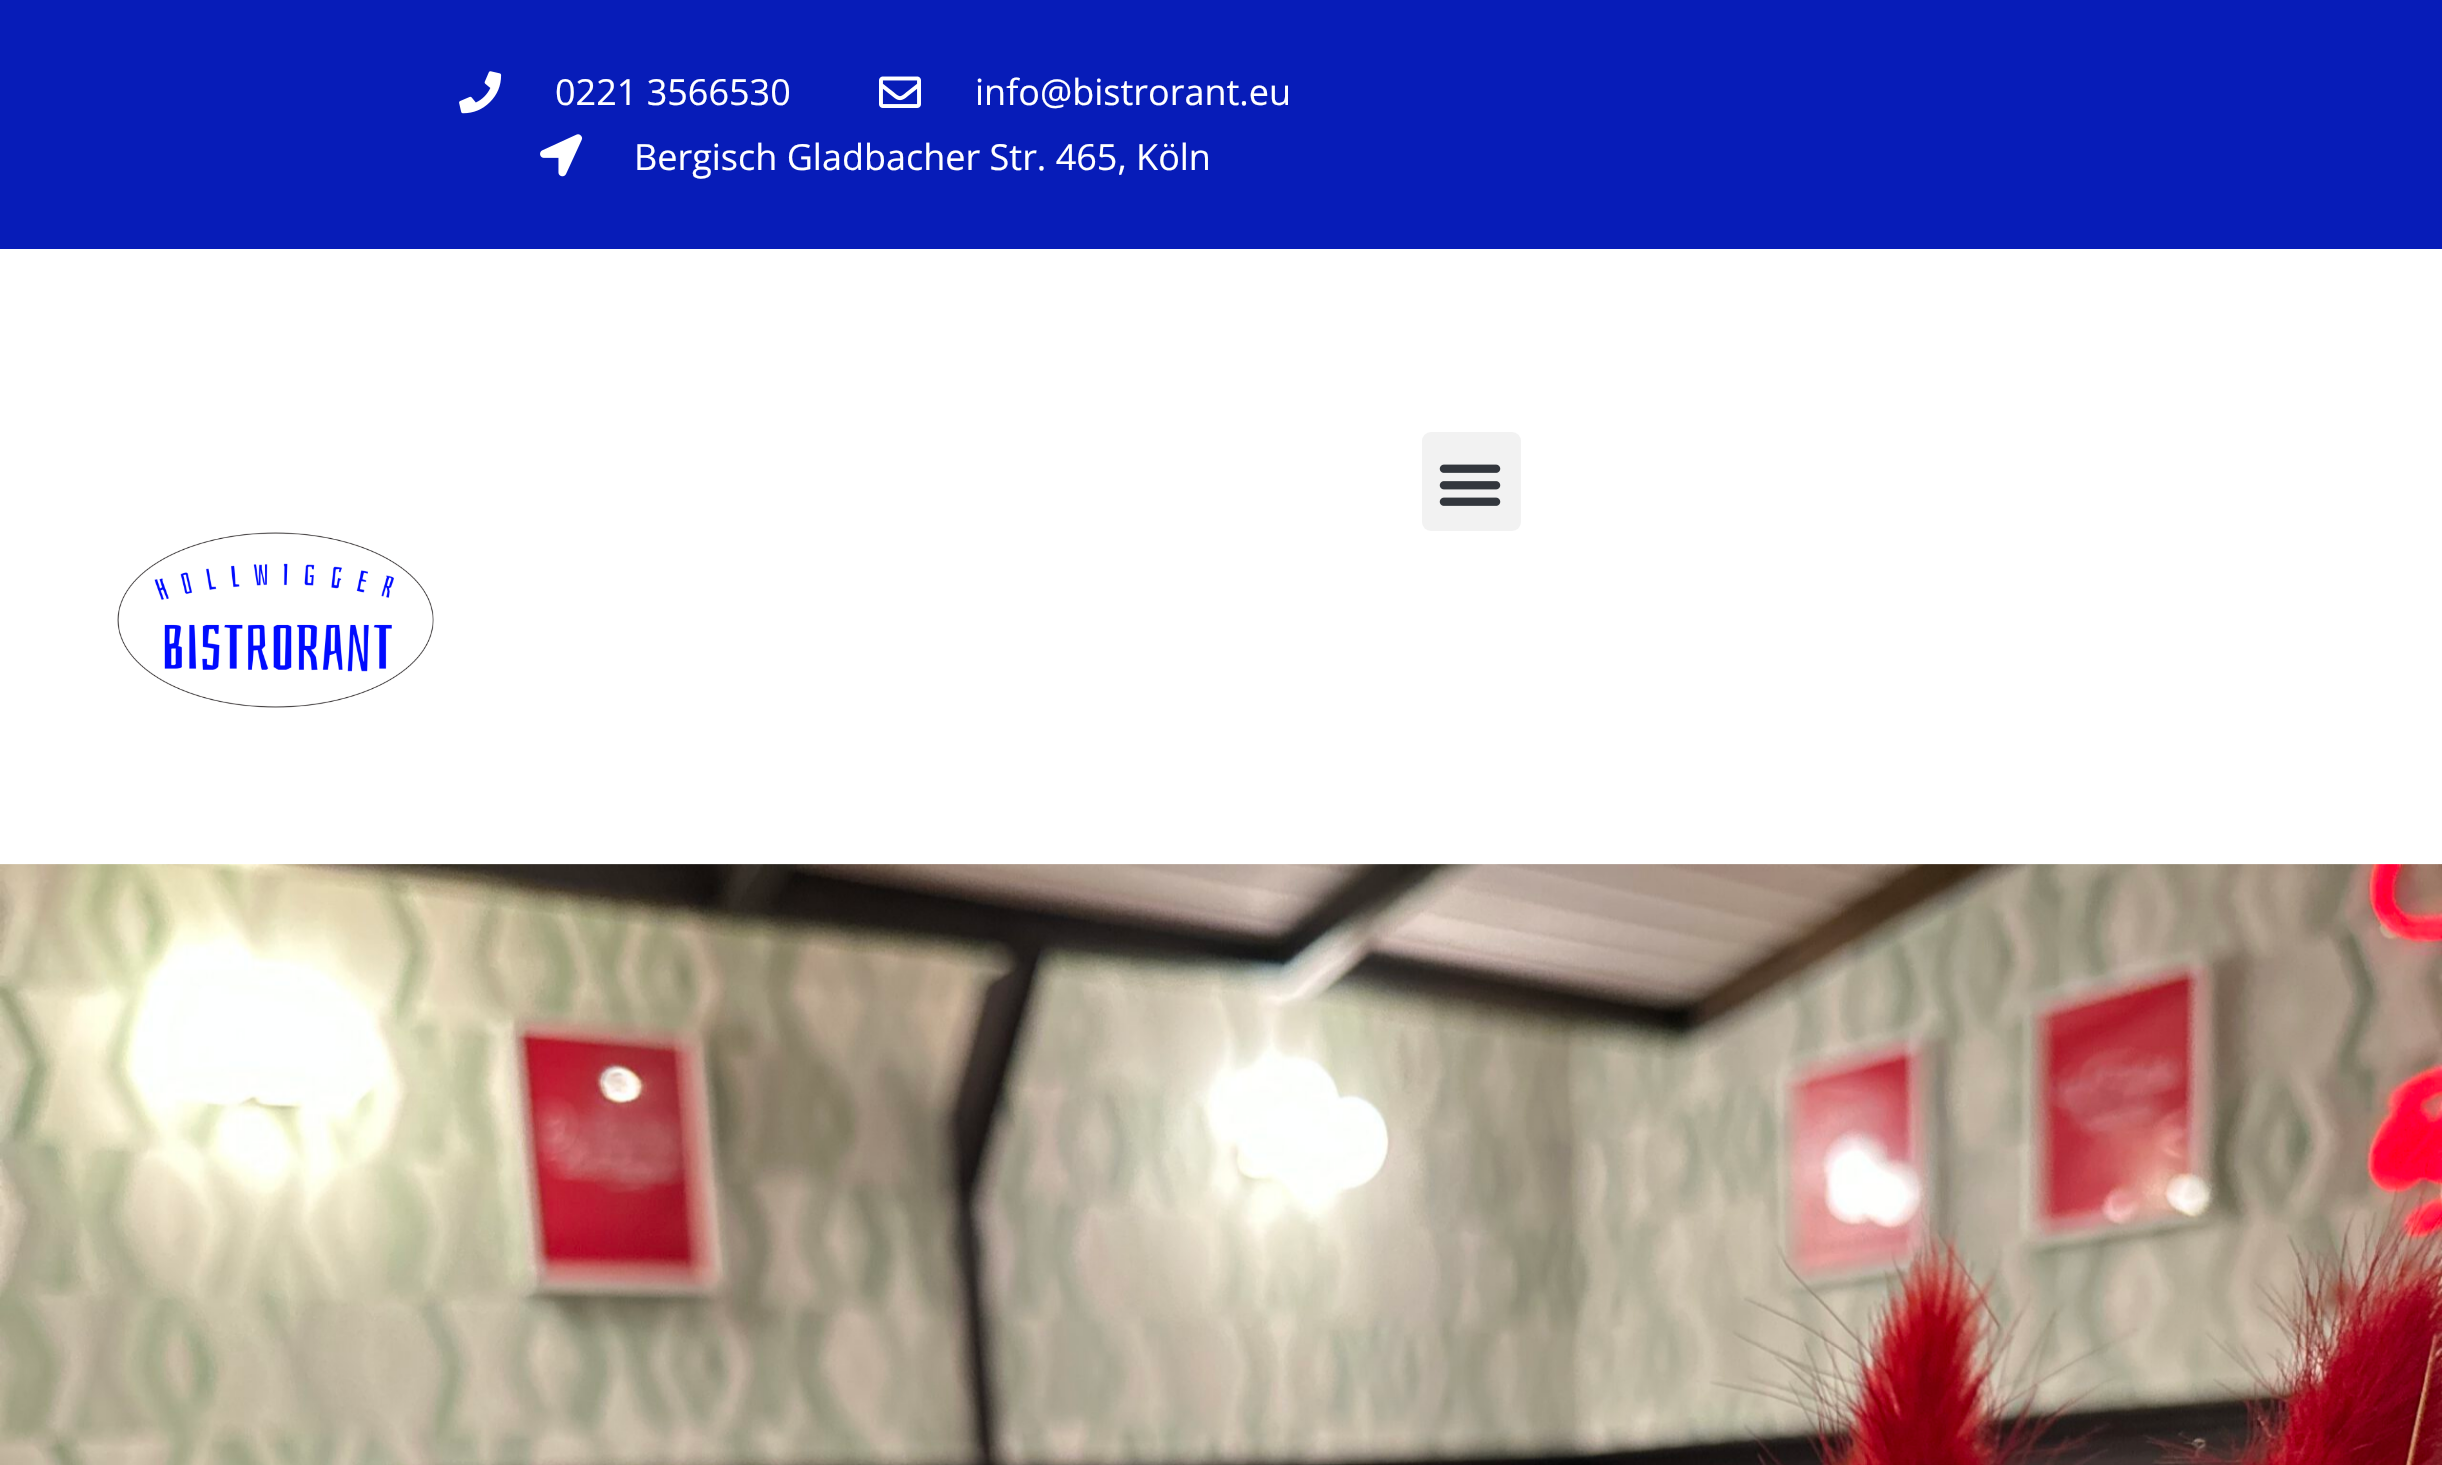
void draw(SkCanvas* c) {
SkPaint p;
p.setAntiAlias(true);
auto F=[&](const char* family, int weight, float size, bool italic = false){SkFontStyle style(weight, SkFontStyle::kNormal_Width,italic ? SkFontStyle::kItalic_Slant : SkFontStyle::kUpright_Slant);SkFont result(fontMgr->matchFamilyStyle(family, style), size);result.setSubpixel(true);return result;};
auto T=[&](const char* s, float x, float y, const SkFont& font){c->drawString(s, x, y, font, p);};
auto R=[&](float x, float y, float w, float h){c->drawRect(SkRect::MakeXYWH(x, y, w, h), p);};
auto Q=[&](float x, float y, float w, float h, float radius){c->drawRoundRect(SkRect::MakeXYWH(x, y, w, h), radius, radius, p);};
auto I=[&](const char* path, float x, float y, float w, float h){auto image = SkImages::DeferredFromEncodedData(SkData::MakeFromFileName(path));c->drawImageRect(image, SkRect::MakeXYWH(x, y, w, h), SkSamplingOptions());};
c->clear(0xffffffff);
p.setColor(0xff071cb8);
R(0,0,2442,249);
I("1.png",459,71,43,43);
auto f1 = F("Open Sans",400,36);
p.setColor(0xffffffff);
T("0221 3566530",555,105,f1);
I("2.png",879,76,42,32);
T("info@bistrorant.eu",975,105,f1);
I("3.png",540,134,43,43);
T("Bergisch Gladbacher Str. 465, Köln",634,170,f1);
p.setColor(0xfff2f2f2);
Q(1422,432,99,99,9);
I("4.png",1439,464,62,42);
I("5.png",117,532,317,176);
I("6.png",0,864,2442,601);
}
